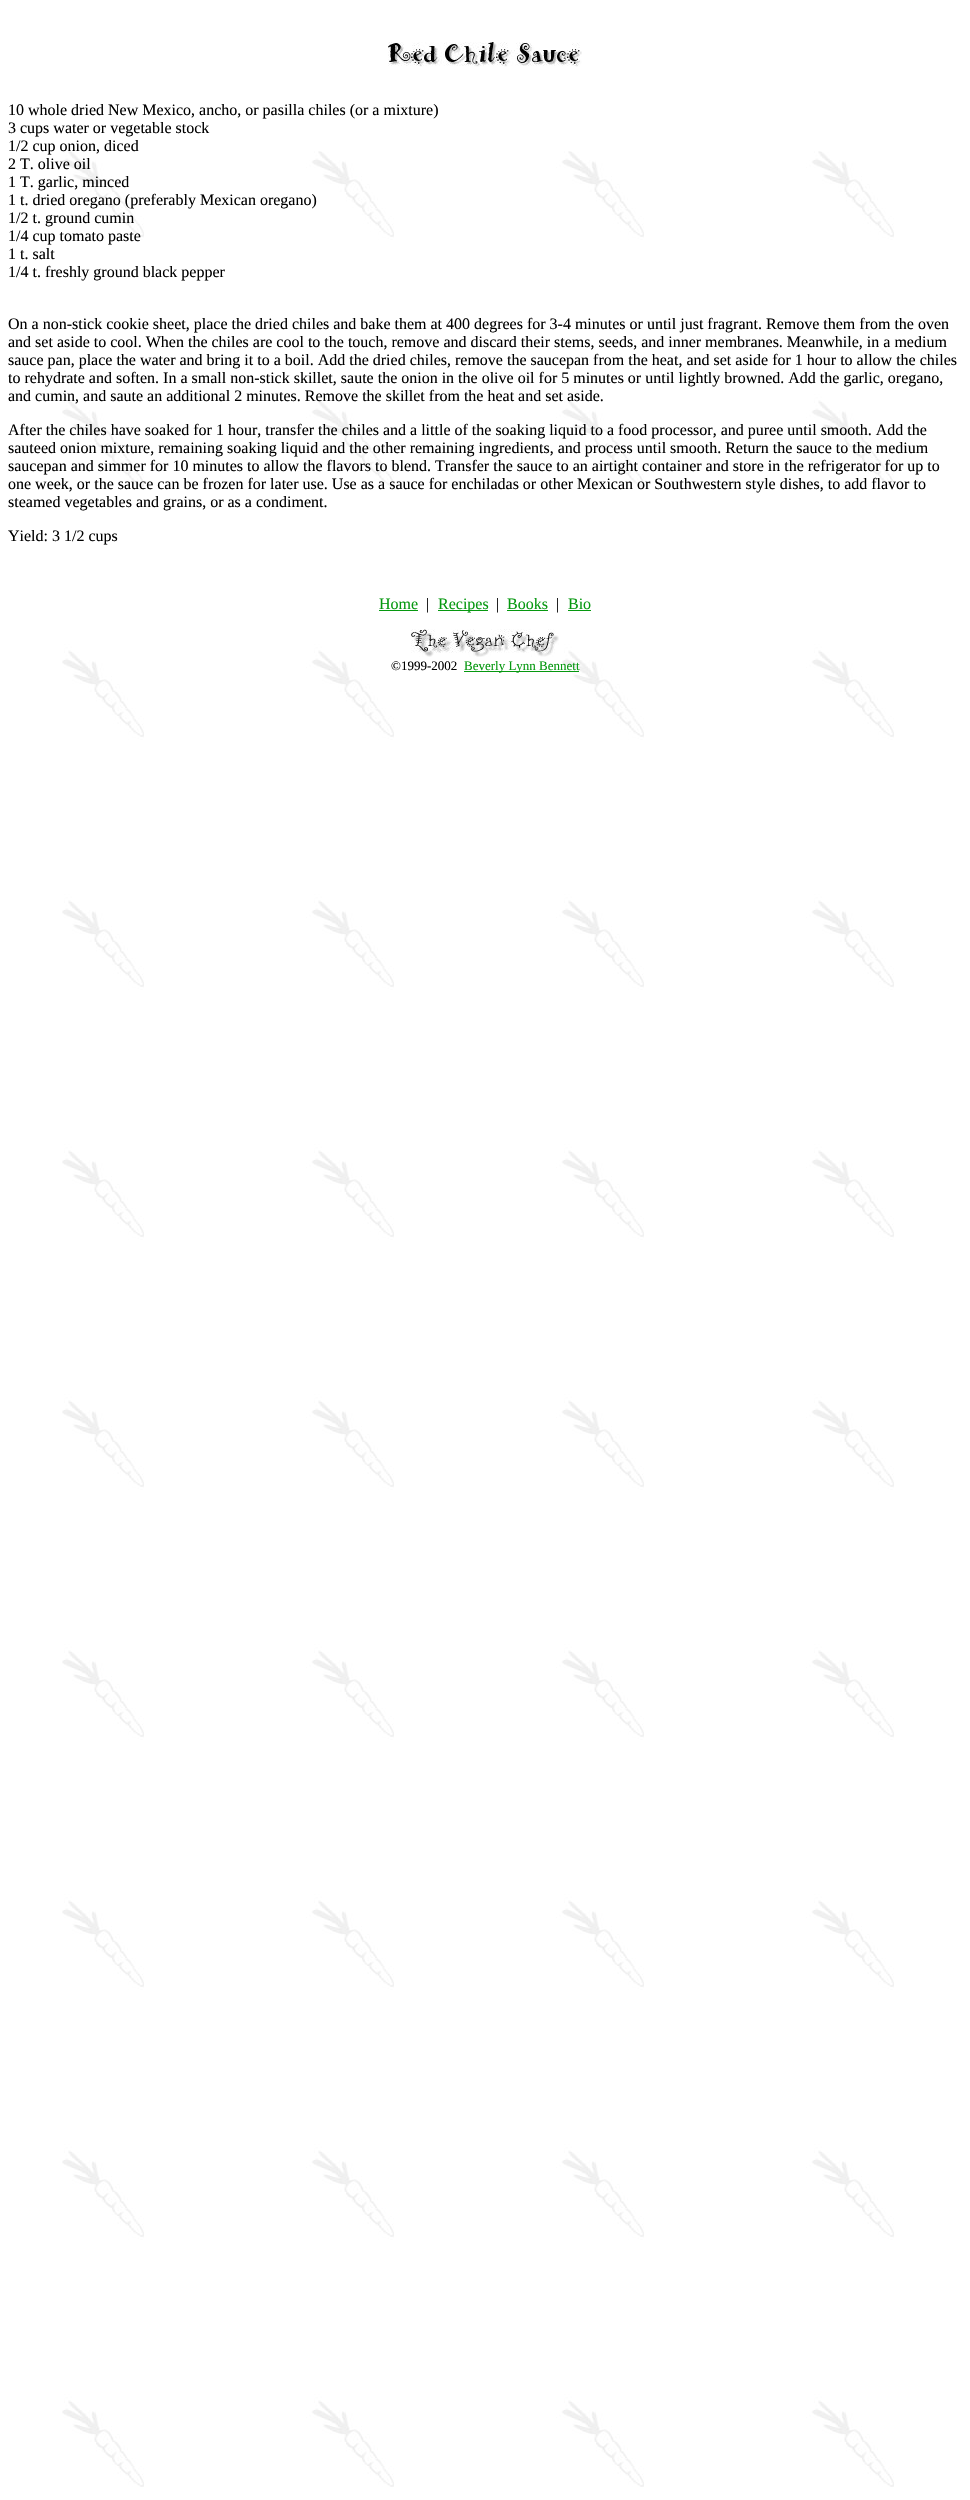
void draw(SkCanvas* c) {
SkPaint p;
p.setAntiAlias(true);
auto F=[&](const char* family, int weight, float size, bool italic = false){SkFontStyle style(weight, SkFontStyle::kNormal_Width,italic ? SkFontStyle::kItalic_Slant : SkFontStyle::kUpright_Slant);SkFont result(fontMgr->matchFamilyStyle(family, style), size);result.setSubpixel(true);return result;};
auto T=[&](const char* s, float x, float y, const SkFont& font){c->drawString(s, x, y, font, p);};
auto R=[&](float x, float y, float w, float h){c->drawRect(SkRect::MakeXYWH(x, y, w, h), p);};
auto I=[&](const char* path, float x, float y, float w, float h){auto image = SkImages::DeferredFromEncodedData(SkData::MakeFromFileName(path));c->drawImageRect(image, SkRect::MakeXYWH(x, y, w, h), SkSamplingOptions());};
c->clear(0xffffffff);
I("1.png",62,151,832,2336);
I("2.png",388,42,194,25);
auto f1 = F("Liberation Serif",400,16);
p.setColor(0xff000000);
T("10 whole dried New Mexico, ancho, or pasilla chiles (or a mixture)",8,115,f1);
T("3 cups water or vegetable stock",8,133,f1);
T("1/2 cup onion, diced",8,151,f1);
T("2 T. olive oil",8,169,f1);
T("1 T. garlic, minced",8,187,f1);
T("1 t. dried oregano (preferably Mexican oregano)",8,205,f1);
T("1/2 t. ground cumin",8,223,f1);
T("1/4 cup tomato paste",8,241,f1);
T("1 t. salt",8,259,f1);
T("1/4 t. freshly ground black pepper",8,277,f1);
T("On a non-stick cookie sheet, place the dried chiles and bake them at 400 degrees for 3-4 minutes or until just fragrant. Remove them from the oven",8,329,f1);
T("and set aside to cool. When the chiles are cool to the touch, remove and discard their stems, seeds, and inner membranes. Meanwhile, in a medium",8,347,f1);
T("sauce pan, place the water and bring it to a boil. Add the dried chiles, remove the saucepan from the heat, and set aside for 1 hour to allow the chiles",8,365,f1);
T("to rehydrate and soften. In a small non-stick skillet, saute the onion in the olive oil for 5 minutes or until lightly browned. Add the garlic, oregano,",8,383,f1);
T("and cumin, and saute an additional 2 minutes. Remove the skillet from the heat and set aside.",8,401,f1);
T("After the chiles have soaked for 1 hour, transfer the chiles and a little of the soaking liquid to a food processor, and puree until smooth. Add the",8,435,f1);
T("sauteed onion mixture, remaining soaking liquid and the other remaining ingredients, and process until smooth. Return the sauce to the medium",8,453,f1);
T("saucepan and simmer for 10 minutes to allow the flavors to blend. Transfer the sauce to an airtight container and store in the refrigerator for up to",8,471,f1);
T("one week, or the sauce can be frozen for later use. Use as a sauce for enchiladas or other Mexican or Southwestern style dishes, to add flavor to",8,489,f1);
T("steamed vegetables and grains, or as a condiment.",8,507,f1);
T("Yield: 3 1/2 cups",8,541,f1);
p.setColor(0xff069810);
T("Home",379,609,f1);
R(379,610,39,1);
p.setColor(0xff000000);
T("|",426,609,f1);
p.setColor(0xff069810);
R(438,610,50,1);
T("Recipes",438,609,f1);
p.setColor(0xff000000);
T("|",496,609,f1);
p.setColor(0xff069810);
T("Books",507,609,f1);
R(507,610,41,1);
p.setColor(0xff000000);
T("|",556,609,f1);
p.setColor(0xff069810);
T("Bio",568,609,f1);
R(568,610,23,1);
I("3.png",411,629,148,28);
auto f2 = F("Liberation Serif",400,13);
p.setColor(0xff000000);
T("©1999-2002",391,670,f2);
p.setColor(0xff069810);
R(464,671,115,1);
T("Beverly Lynn Bennett",464,670,f2);
}
